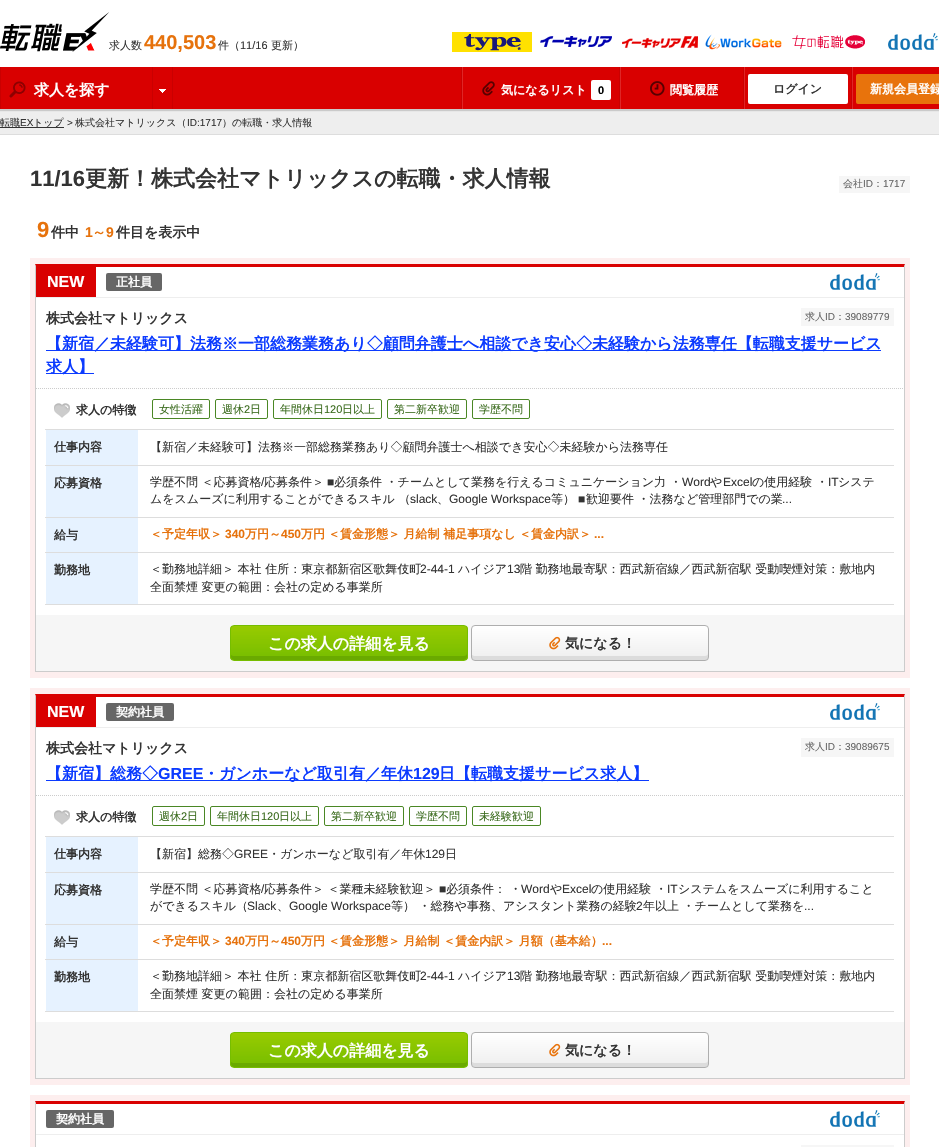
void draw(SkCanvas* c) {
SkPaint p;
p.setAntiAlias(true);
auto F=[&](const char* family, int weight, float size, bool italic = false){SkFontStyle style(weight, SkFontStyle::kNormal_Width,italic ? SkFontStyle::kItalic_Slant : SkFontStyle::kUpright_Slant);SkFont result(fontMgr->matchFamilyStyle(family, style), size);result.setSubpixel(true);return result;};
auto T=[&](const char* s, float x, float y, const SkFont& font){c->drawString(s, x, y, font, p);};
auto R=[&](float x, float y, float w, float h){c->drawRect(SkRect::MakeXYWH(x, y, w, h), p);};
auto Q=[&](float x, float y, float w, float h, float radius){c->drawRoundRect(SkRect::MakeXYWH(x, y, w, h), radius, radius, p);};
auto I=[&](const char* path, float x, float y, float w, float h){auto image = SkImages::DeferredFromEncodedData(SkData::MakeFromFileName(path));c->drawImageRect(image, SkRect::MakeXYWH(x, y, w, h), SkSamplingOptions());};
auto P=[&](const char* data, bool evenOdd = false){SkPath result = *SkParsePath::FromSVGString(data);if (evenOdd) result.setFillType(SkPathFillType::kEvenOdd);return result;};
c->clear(0xffffffff);
I("1.png",0,12,109,40);
auto f1 = F("WenQuanYi Zen Hei",500,11);
p.setColor(0xff333333);
T("求人数",109,49,f1);
auto f2 = F("Liberation Sans",700,20);
p.setColor(0xffe6720c);
T("440,503",144,49,f2);
p.setColor(0xff333333);
T("件（",218,49,f1);
auto f3 = F("Liberation Sans",400,11);
T("11/16",240,49,f3);
T("更新）",271,49,f1);
I("2.png",452,32,80,20);
I("3.png",540,36,72,11);
I("4.png",622,36,76,12);
I("5.png",705,34,77,16);
I("6.png",792,35,73,14);
I("7.png",888,33,50,17);
p.setColor(0xffeeeeee);
R(0,109,939,25);
p.setColor(0x26000000);
p.setMaskFilter(SkMaskFilter::MakeBlur(kNormal_SkBlurStyle, .5));
c->drawRect(SkRect::MakeXYWH(0,69,939,42),p);
p.setMaskFilter(nullptr);
p.setColor(0xffd90000);
R(1,67,938,42);
p.setColor(0xffca0000);
R(172,67,1,42);
R(0,67,1,42);
I("8.png",9,81,17,17);
auto f4 = F("WenQuanYi Zen Hei",700,15);
p.setColor(0xffffffff);
T("求人を探す",34,95,f4);
p.setColor(0xffca0000);
R(152,67,1,42);
I("9.png",159,89,7,4);
R(461,67,1,42);
R(619,67,1,42);
p.setColor(0xffdf2626);
R(462,67,1,42);
I("10.png",482,81,13,15);
auto f5 = F("WenQuanYi Zen Hei",700,12);
p.setColor(0xffffffff);
T("気になるリスト",501,94,f5);
Q(591,80,20,20,2);
auto f6 = F("Liberation Sans",700,11);
p.setColor(0xff000000);
T("0",598,94,f6);
p.setColor(0xffca0000);
R(743,67,1,42);
p.setColor(0xffdf2626);
R(620,67,1,42);
I("11.png",650,81,15,15);
p.setColor(0xffffffff);
T("閲覧履歴",670,94,f5);
p.setColor(0xffca0000);
R(851,67,1,42);
p.setColor(0xffdf2626);
R(744,67,1,42);
p.setColor(0xffffffff);
Q(748,74,100,30,2);
p.setColor(0xff333333);
T("ログイン",773,93,f5);
p.setColor(0xffdf2626);
R(852,67,1,42);
p.setColor(0xffe8730c);
Q(856,74,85,30,2);
p.setColor(0xffffffff);
T("新規会員登録",870,93,f5);
p.setColor(0xffdddddd);
R(0,134,939,1);
p.setColor(0xff333333);
R(0,127,64,1);
auto f7 = F("WenQuanYi Zen Hei",500,10);
T("転職",0,126,f7);
auto f8 = F("Liberation Sans",400,10);
T("EX",20,126,f8);
T("トップ",33,126,f7);
T(">",67,126,f8);
T("株式会社マトリックス（",75,126,f7);
T("ID:1717",187,126,f8);
T("）の転職・求人情報",222,126,f7);
auto f9 = F("Liberation Sans",700,22);
T("11/16",30,186,f9);
auto f10 = F("WenQuanYi Zen Hei",700,22);
T("更新！株式会社マトリックスの転職・求人情報",85,186,f10);
p.setColor(0xfff6f6f6);
R(839,176,71,17);
p.setColor(0xff666666);
T("会社",843,187,f7);
T("ID",863,187,f8);
T("：",873,187,f7);
T("1717",883,187,f8);
p.setColor(0xffe6720c);
T("9",37,237,f9);
auto f11 = F("WenQuanYi Zen Hei",700,14);
p.setColor(0xff333333);
T("件中",51,237,f11);
auto f12 = F("Liberation Sans",700,14);
p.setColor(0xffe6720c);
T("1",85,237,f12);
T("～",92,237,f11);
T("9",106,237,f12);
p.setColor(0xff333333);
T("件目を表示中",116,237,f11);
p.setColor(0xfffdeeee);
R(30,258,880,420);
p.setColor(0xffffffff);
R(36,267,868,348);
p.setColor(0xffd90000);
c->drawPath(P("M35 264h870l-1 3h-868z"),p);
p.setColor(0xffcccccc);
c->drawPath(P("M905 264v408l-1-1v-404z"),p);
R(35,671,870,1);
c->drawPath(P("M35 672v-408l1 3v404z"),p);
p.setStroke(true);
p.setStrokeWidth(1);
p.setPathEffect(SkDashPathEffect::Make({{1,1}}, 0));
c->drawPath(P("M36 388.5h868"),p);
p.setPathEffect(nullptr);
p.setStroke(false);
p.setColor(0xffeeeeee);
R(36,297,868,1);
p.setColor(0xffd90000);
R(36,267,60,30);
auto f13 = F("Liberation Sans",700,16);
p.setColor(0xffffffff);
T("NEW",47,287,f13);
p.setColor(0xff666666);
Q(106,273,56,18,2);
p.setColor(0xffffffff);
T("正社員",116,286,f5);
I("7.png",830,273,50,17);
p.setColor(0xff333333);
T("株式会社マトリックス",46,323,f11);
p.setColor(0xfff6f6f6);
R(801,308,93,18);
p.setColor(0xff666666);
T("求人",805,320,f7);
T("ID",825,320,f8);
T("：",835,320,f7);
T("39089779",845,320,f8);
p.setColor(0xff0c3bff);
R(46,350,835,1);
auto f14 = F("WenQuanYi Zen Hei",700,16);
T("【新宿／未経験可】法務※一部総務業務あり◇顧問弁護士へ相談でき安心◇未経験から法務専任【転職支援サービス",46,349,f14);
R(46,373,48,1);
T("求人】",46,372,f14);
I("12.png",54,403,16,15);
p.setColor(0xff333333);
T("求人の特徴",76,414,f5);
p.setStroke(true);
p.setColor(0xff4a8724);
c->drawRoundRect(SkRect::MakeXYWH(152.5,399.5,57,19),1.5,1.5,p);
p.setStroke(false);
p.setColor(0xff3a6b1d);
T("女性活躍",159,413,f1);
p.setStroke(true);
p.setColor(0xff4a8724);
c->drawRoundRect(SkRect::MakeXYWH(215.5,399.5,52,19),1.5,1.5,p);
p.setStroke(false);
p.setColor(0xff3a6b1d);
T("週休",222,413,f1);
T("2",244,413,f3);
T("日",250,413,f1);
p.setStroke(true);
p.setColor(0xff4a8724);
c->drawRoundRect(SkRect::MakeXYWH(273.5,399.5,108,19),1.5,1.5,p);
p.setStroke(false);
p.setColor(0xff3a6b1d);
T("年間休日",280,413,f1);
T("120",324,413,f3);
T("日以上",342,413,f1);
p.setStroke(true);
p.setColor(0xff4a8724);
c->drawRoundRect(SkRect::MakeXYWH(387.5,399.5,79,19),1.5,1.5,p);
p.setStroke(false);
p.setColor(0xff3a6b1d);
T("第二新卒歓迎",394,413,f1);
p.setStroke(true);
p.setColor(0xff4a8724);
c->drawRoundRect(SkRect::MakeXYWH(472.5,399.5,57,19),1.5,1.5,p);
p.setStroke(false);
p.setColor(0xff3a6b1d);
T("学歴不問",479,413,f1);
p.setColor(0xffe6f2ff);
R(46,430,92,35);
p.setColor(0xff333333);
T("仕事内容",54,451,f5);
p.setColor(0xffdddddd);
R(45,429,849,1);
auto f15 = F("WenQuanYi Zen Hei",500,12);
p.setColor(0xff333333);
T("【新宿／未経験可】法務※一部総務業務あり◇顧問弁護士へ相談でき安心◇未経験から法務専任",150,451,f15);
p.setColor(0xffe6f2ff);
R(46,466,92,51);
p.setColor(0xff333333);
T("応募資格",54,487,f5);
p.setColor(0xffdddddd);
R(45,465,849,1);
p.setColor(0xff333333);
T("学歴不問 ＜応募資格",150,486,f15);
auto f16 = F("Liberation Sans",400,12);
T("/",261,486,f16);
T("応募条件＞",264,486,f15);
T("■",327,486,f16);
T("必須条件 ・チームとして業務を行えるコミュニケーション力 ・",334,486,f15);
T("Word",682,486,f16);
T("や",710,486,f15);
T("Excel",723,486,f16);
T("の使用経験 ・",752,486,f15);
T("IT",828,486,f16);
T("システ",838,486,f15);
T("ムをスムーズに利用することができるスキル （",150,503,f15);
T("slack",410,503,f16);
T("、",437,503,f15);
T("Google Workspace",449,503,f16);
T("等）",551,503,f15);
T("■",578,503,f16);
T("歓迎要件 ・法務など管理部門での業",586,503,f15);
T("...",782,503,f16);
p.setColor(0xffe6f2ff);
R(46,518,92,34);
p.setColor(0xff333333);
T("給与",54,539,f5);
p.setColor(0xffdddddd);
R(45,517,849,1);
p.setColor(0xffe6720c);
T("＜予定年収＞",150,538,f5);
auto f17 = F("Liberation Sans",700,12);
T("340",225,538,f17);
T("万円～",245,538,f5);
T("450",281,538,f17);
T("万円",301,538,f5);
T("＜賃金形態＞ 月給制 補足事項なし",328,538,f5);
T("＜賃金内訳＞",519,538,f5);
T("...",594,538,f17);
p.setColor(0xffe6f2ff);
R(46,553,92,51);
p.setColor(0xff333333);
T("勤務地",54,574,f5);
p.setColor(0xffdddddd);
R(45,552,849,1);
R(45,604,849,1);
p.setColor(0xff333333);
T("＜勤務地詳細＞ 本社 住所：東京都新宿区歌舞伎町",150,573,f15);
T("2-44-1",420,573,f16);
T("ハイジア",458,573,f15);
T("13",507,573,f16);
T("階 勤務地最寄駅：西武新宿線／西武新宿駅 受動喫煙対策：敷地内",520,573,f15);
T("全面禁煙 変更の範囲：会社の定める事業所",150,591,f15);
p.setColor(0xfff6f6f6);
R(36,615,868,56);
c->save();
c->clipPath(P("M234 625h230c2 0 4 2 4 4v28c0 2-2 4-4 4h-230c-2 0-4-2-4-4v-28c0-2 2-4 4-4z"),true);
{
const SkColor colors[] = {0xff98cb00,0xff76bd00};
const float stops[] = {0,1};
const SkPoint ends[] = {{349,626}, {349,660}};
p.setShader(SkGradientShader::MakeLinear(ends, colors, stops, 2, SkTileMode::kClamp));
p.setAlpha(255);
}
R(230,626,238,34);
c->restore();
p.setShader(nullptr);
p.setColor(0xff6aaa00);
c->drawPath(P("M231 653v4c0 2 1 3 3 3h230c2 0 3-1 3-3v-4c0 2-1 3-3 3h-231l-2-1z"),p);
p.setStroke(true);
p.setColor(0xff76bd00);
c->drawRoundRect(SkRect::MakeXYWH(230.5,625.5,237,35),3.5,3.5,p);
p.setStroke(false);
p.setColor(0xffffffff);
T("この求人の詳細を見る",268,649,f14);
c->save();
c->clipPath(P("M475 625h230c2 0 4 2 4 4v28c0 2-2 4-4 4h-230c-2 0-4-2-4-4v-28c0-2 2-4 4-4z"),true);
{
const SkColor colors[] = {0xffffffff,0xffeeeeee};
const float stops[] = {0,1};
const SkPoint ends[] = {{590,626}, {590,660}};
p.setShader(SkGradientShader::MakeLinear(ends, colors, stops, 2, SkTileMode::kClamp));
p.setAlpha(255);
}
R(471,626,238,34);
c->restore();
p.setShader(nullptr);
p.setColor(0xffdcdcdc);
c->drawPath(P("M472 653v4c0 2 1 3 3 3h230c2 0 3-1 3-3v-4c0 2-1 3-3 3h-231l-2-1z"),p);
p.setStroke(true);
p.setColor(0xffaeaeae);
c->drawRoundRect(SkRect::MakeXYWH(471.5,625.5,237,35),3.5,3.5,p);
I("13.png",549,636,12,14);
p.setStroke(false);
p.setColor(0xff333333);
T("気になる！",565,648,f11);
p.setColor(0xfffdeeee);
R(30,688,880,397);
p.setColor(0xffffffff);
R(36,697,868,325);
p.setColor(0xffd90000);
c->drawPath(P("M35 694h870l-1 3h-868z"),p);
p.setColor(0xffcccccc);
c->drawPath(P("M905 694v385l-1-1v-381z"),p);
R(35,1078,870,1);
c->drawPath(P("M35 1079v-385l1 3v381z"),p);
p.setStroke(true);
p.setPathEffect(SkDashPathEffect::Make({{1,1}}, 0));
c->drawPath(P("M36 795.5h868"),p);
p.setPathEffect(nullptr);
p.setStroke(false);
p.setColor(0xffeeeeee);
R(36,727,868,1);
p.setColor(0xffd90000);
R(36,697,60,30);
p.setColor(0xffffffff);
T("NEW",47,717,f13);
p.setColor(0xff666666);
Q(106,703,68,18,2);
p.setColor(0xffffffff);
T("契約社員",116,716,f5);
I("7.png",830,703,50,17);
p.setColor(0xff333333);
T("株式会社マトリックス",46,753,f11);
p.setColor(0xfff6f6f6);
R(801,738,93,19);
p.setColor(0xff666666);
T("求人",805,750,f7);
T("ID",825,750,f8);
T("：",835,750,f7);
T("39089675",845,750,f8);
p.setColor(0xff0c3bff);
R(46,780,603,1);
T("【新宿】総務◇",46,779,f14);
T("GREE",158,779,f13);
T("・ガンホーなど取引有／年休",203,779,f14);
T("129",413,779,f13);
T("日【転職支援サービス求人】",439,779,f14);
I("12.png",54,810,16,15);
p.setColor(0xff333333);
T("求人の特徴",76,821,f5);
p.setStroke(true);
p.setColor(0xff4a8724);
c->drawRoundRect(SkRect::MakeXYWH(152.5,806.5,52,19),1.5,1.5,p);
p.setStroke(false);
p.setColor(0xff3a6b1d);
T("週休",159,820,f1);
T("2",181,820,f3);
T("日",187,820,f1);
p.setStroke(true);
p.setColor(0xff4a8724);
c->drawRoundRect(SkRect::MakeXYWH(210.5,806.5,108,19),1.5,1.5,p);
p.setStroke(false);
p.setColor(0xff3a6b1d);
T("年間休日",217,820,f1);
T("120",261,820,f3);
T("日以上",279,820,f1);
p.setStroke(true);
p.setColor(0xff4a8724);
c->drawRoundRect(SkRect::MakeXYWH(324.5,806.5,79,19),1.5,1.5,p);
p.setStroke(false);
p.setColor(0xff3a6b1d);
T("第二新卒歓迎",331,820,f1);
p.setStroke(true);
p.setColor(0xff4a8724);
c->drawRoundRect(SkRect::MakeXYWH(409.5,806.5,57,19),1.5,1.5,p);
p.setStroke(false);
p.setColor(0xff3a6b1d);
T("学歴不問",416,820,f1);
p.setStroke(true);
p.setColor(0xff4a8724);
c->drawRoundRect(SkRect::MakeXYWH(472.5,806.5,68,19),1.5,1.5,p);
p.setStroke(false);
p.setColor(0xff3a6b1d);
T("未経験歓迎",479,820,f1);
p.setColor(0xffe6f2ff);
R(46,837,92,35);
p.setColor(0xff333333);
T("仕事内容",54,858,f5);
p.setColor(0xffdddddd);
R(45,836,849,1);
p.setColor(0xff333333);
T("【新宿】総務◇",150,858,f15);
T("GREE",234,858,f16);
T("・ガンホーなど取引有／年休",268,858,f15);
T("129",425,858,f16);
T("日",445,858,f15);
p.setColor(0xffe6f2ff);
R(46,873,92,51);
p.setColor(0xff333333);
T("応募資格",54,894,f5);
p.setColor(0xffdddddd);
R(45,872,849,1);
p.setColor(0xff333333);
T("学歴不問 ＜応募資格",150,893,f15);
T("/",261,893,f16);
T("応募条件＞ ＜業種未経験歓迎＞",264,893,f15);
T("■",439,893,f16);
T("必須条件： ・",446,893,f15);
T("Word",521,893,f16);
T("や",550,893,f15);
T("Excel",562,893,f16);
T("の使用経験 ・",591,893,f15);
T("IT",667,893,f16);
T("システムをスムーズに利用すること",678,893,f15);
T("ができるスキル（",150,910,f15);
T("Slack",247,910,f16);
T("、",277,910,f15);
T("Google Workspace",289,910,f16);
T("等） ・総務や事務、アシスタント業務の経験",391,910,f15);
T("2",636,910,f16);
T("年以上 ・チームとして業務を",643,910,f15);
T("...",804,910,f16);
p.setColor(0xffe6f2ff);
R(46,925,92,34);
p.setColor(0xff333333);
T("給与",54,946,f5);
p.setColor(0xffdddddd);
R(45,924,849,1);
p.setColor(0xffe6720c);
T("＜予定年収＞",150,945,f5);
T("340",225,945,f17);
T("万円～",245,945,f5);
T("450",281,945,f17);
T("万円",301,945,f5);
T("＜賃金形態＞ 月給制 ＜賃金内訳＞ 月額（基本給）",328,945,f5);
T("...",602,945,f17);
p.setColor(0xffe6f2ff);
R(46,960,92,51);
p.setColor(0xff333333);
T("勤務地",54,981,f5);
p.setColor(0xffdddddd);
R(45,959,849,1);
R(45,1011,849,1);
p.setColor(0xff333333);
T("＜勤務地詳細＞ 本社 住所：東京都新宿区歌舞伎町",150,980,f15);
T("2-44-1",420,980,f16);
T("ハイジア",458,980,f15);
T("13",507,980,f16);
T("階 勤務地最寄駅：西武新宿線／西武新宿駅 受動喫煙対策：敷地内",520,980,f15);
T("全面禁煙 変更の範囲：会社の定める事業所",150,998,f15);
p.setColor(0xfff6f6f6);
R(36,1022,868,56);
c->save();
c->clipPath(P("M234 1032h230c2 0 4 2 4 4v28c0 2-2 4-4 4h-230c-2 0-4-2-4-4v-28c0-2 2-4 4-4z"),true);
{
const SkColor colors[] = {0xff98cb00,0xff76bd00};
const float stops[] = {0,1};
const SkPoint ends[] = {{349,1033}, {349,1067}};
p.setShader(SkGradientShader::MakeLinear(ends, colors, stops, 2, SkTileMode::kClamp));
p.setAlpha(255);
}
R(230,1033,238,34);
c->restore();
p.setShader(nullptr);
p.setColor(0xff6aaa00);
c->drawPath(P("M231 1060v4c0 2 1 3 3 3h230c2 0 3-1 3-3v-4c0 2-1 3-3 3h-231l-2-1z"),p);
p.setStroke(true);
p.setColor(0xff76bd00);
c->drawRoundRect(SkRect::MakeXYWH(230.5,1032.5,237,35),3.5,3.5,p);
p.setStroke(false);
p.setColor(0xffffffff);
T("この求人の詳細を見る",268,1056,f14);
c->save();
c->clipPath(P("M475 1032h230c2 0 4 2 4 4v28c0 2-2 4-4 4h-230c-2 0-4-2-4-4v-28c0-2 2-4 4-4z"),true);
{
const SkColor colors[] = {0xffffffff,0xffeeeeee};
const float stops[] = {0,1};
const SkPoint ends[] = {{590,1033}, {590,1067}};
p.setShader(SkGradientShader::MakeLinear(ends, colors, stops, 2, SkTileMode::kClamp));
p.setAlpha(255);
}
R(471,1033,238,34);
c->restore();
p.setShader(nullptr);
p.setColor(0xffdcdcdc);
c->drawPath(P("M472 1060v4c0 2 1 3 3 3h230c2 0 3-1 3-3v-4c0 2-1 3-3 3h-231l-2-1z"),p);
p.setStroke(true);
p.setColor(0xffaeaeae);
c->drawRoundRect(SkRect::MakeXYWH(471.5,1032.5,237,35),3.5,3.5,p);
I("13.png",549,1043,12,14);
p.setStroke(false);
p.setColor(0xff333333);
T("気になる！",565,1055,f11);
p.setColor(0xfffdeeee);
R(30,1095,880,52);
p.setColor(0xffffffff);
R(36,1104,868,43);
p.setColor(0xffd90000);
c->drawPath(P("M35 1101h870l-1 3h-868z"),p);
p.setColor(0xffcccccc);
c->drawPath(P("M905 1101v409l-1-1v-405z"),p);
c->drawPath(P("M35 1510v-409l1 3v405z"),p);
p.setColor(0xffeeeeee);
R(36,1134,868,1);
p.setColor(0xff666666);
Q(46,1110,68,18,2);
p.setColor(0xffffffff);
T("契約社員",56,1123,f5);
I("7.png",830,1110,50,17);
p.setColor(0xfff6f6f6);
R(801,1145,93,2);
}
